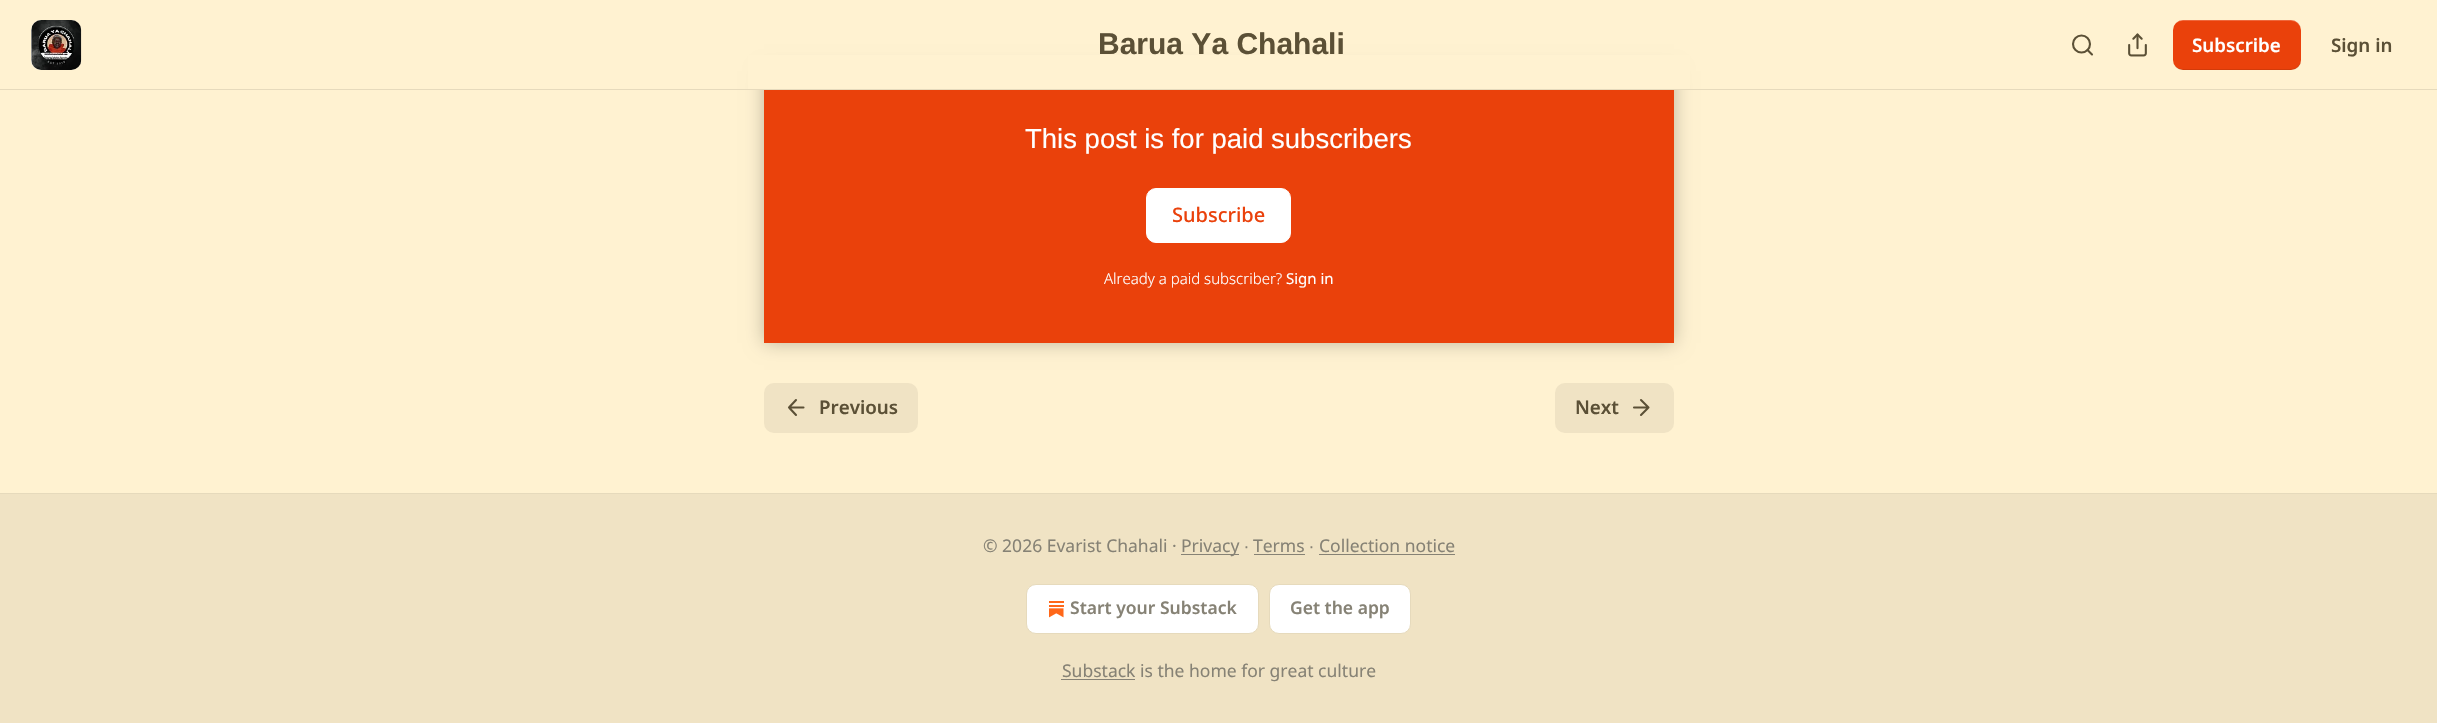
void draw(SkCanvas* c) {
SkPaint p;
p.setAntiAlias(true);
auto F=[&](const char* family, int weight, float size, bool italic = false){SkFontStyle style(weight, SkFontStyle::kNormal_Width,italic ? SkFontStyle::kItalic_Slant : SkFontStyle::kUpright_Slant);SkFont result(fontMgr->matchFamilyStyle(family, style), size);result.setSubpixel(true);return result;};
auto T=[&](const char* s, float x, float y, const SkFont& font){c->drawString(s, x, y, font, p);};
auto R=[&](float x, float y, float w, float h){c->drawRect(SkRect::MakeXYWH(x, y, w, h), p);};
auto Q=[&](float x, float y, float w, float h, float radius){c->drawRoundRect(SkRect::MakeXYWH(x, y, w, h), radius, radius, p);};
auto I=[&](const char* path, float x, float y, float w, float h){auto image = SkImages::DeferredFromEncodedData(SkData::MakeFromFileName(path));c->drawImageRect(image, SkRect::MakeXYWH(x, y, w, h), SkSamplingOptions());};
auto P=[&](const char* data, bool evenOdd = false){SkPath result = *SkParsePath::FromSVGString(data);if (evenOdd) result.setFillType(SkPathFillType::kEvenOdd);return result;};
c->clear(0xfffff2d1);
p.setColor(0xffea410b);
R(764,90,910,253);
p.setColor(0xffffffff);
c->drawRoundRect(SkRect::MakeXYWH(1146.5,188.5,144,54),9.5,9.5,p);
p.setStroke(true);
p.setStrokeWidth(1);
c->drawRoundRect(SkRect::MakeXYWH(1146.5,188.5,144,54),9.5,9.5,p);
c->save();
c->clipPath(P("M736 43h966v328h-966zm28 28h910v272h-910z",true),true);
p.setStroke(false);
p.setColor(0x40000000);
p.setMaskFilter(SkMaskFilter::MakeBlur(kNormal_SkBlurStyle, 9));
c->drawRect(SkRect::MakeXYWH(764,71,910,272),p);
p.setMaskFilter(nullptr);
c->restore();
p.setColor(0xfffff2d1);
R(748,55,942,34);
p.setColor(0xffe6dabc);
R(0,89,2437,1);
p.setColor(0xffffffff);
Q(31,20,50,50,10);
I("1.png",31,20,51,50);
auto f1 = F("Liberation Sans",700,30);
p.setColor(0xff5b5036);
T("Barua Ya Chahali",1098,54,f1);
p.setStroke(true);
p.setStrokeWidth(2.1);
c->drawCircle(2081.5,44,8.5,p);
p.setStrokeCap(SkPaint::kRound_Cap);
p.setStrokeJoin(SkPaint::kRound_Join);
c->drawPath(P("M2092 54.5l-4.5-4.5"),p);
I("2.png",2128,33,19,24);
p.setStroke(false);
p.setColor(0xffea410b);
Q(2173,20,128,50,10);
p.setColor(0x1a000000);
c->drawPath(P("M2174 65c2 3 5 5 9 5h108c6 0 10-4 10-10v-1c0 5-4 10-10 10h-109c-3 0-6-2-8-4z"),p);
p.setColor(0x33ffffff);
c->drawPath(P("M2182 21h109c6 0 10 5 10 10v-1c0-6-4-10-10-10h-108c-4 0-7 2-9 5c2-2 5-4 8-4z"),p);
auto f2 = F("Noto Sans",600,18.75);
p.setColor(0xffffffff);
T("Subscribe",2192,52,f2);
p.setColor(0xff5b5036);
T("Sign in",2331,52,f2);
auto f3 = F("Liberation Sans",400,27.5);
p.setColor(0xffffffff);
T("This post is for paid subscribers",1025,148,f3);
auto f4 = F("Noto Sans",500,20);
p.setColor(0xffea410b);
T("Subscribe",1172,222,f4);
auto f5 = F("Noto Sans",300,15);
p.setColor(0xffffffff);
T("Already a paid subscriber?",1104,284,f5);
auto f6 = F("Noto Sans",400,15);
T("Sign in",1286,284,f6);
p.setColor(0xfff0e3c4);
Q(764,383,154,50,10);
p.setStroke(true);
p.setColor(0xff5b5036);
c->drawPath(P("M796 415l-7-7.5l7-7.5m7.5 7.5h-14.5"),p);
p.setStroke(false);
T("Previous",819,414,f2);
p.setColor(0xfff0e3c4);
Q(1555,383,119,50,10);
p.setColor(0xff5b5036);
T("Next",1575,414,f2);
p.setStroke(true);
c->drawPath(P("M1634 407.5h14.5m-7.5-7.5l7.5 7.5l-7.5 7.5"),p);
p.setStroke(false);
p.setColor(0xfff0e3c4);
R(0,494,2437,229);
p.setColor(0xffe6dabc);
R(0,493,2437,1);
auto f7 = F("Noto Sans",400,17.5);
p.setColor(0xff868275);
T("© 2026 Evarist Chahali ·",983,552,f7);
R(1181,554,58,1);
T("Privacy",1181,552,f7);
auto f8 = F("Liberation Sans",400,17.5);
T("∙",1244,552,f8);
T("Terms",1253,552,f7);
R(1254,554,51,1);
T("∙",1309,552,f8);
T("Collection notice",1319,552,f7);
R(1319,554,136,1);
p.setColor(0xffffffff);
c->drawRoundRect(SkRect::MakeXYWH(1026.5,584.5,232,49),9.5,9.5,p);
p.setStroke(true);
p.setStrokeWidth(1);
p.setStrokeCap(SkPaint::kButt_Cap);
p.setStrokeJoin(SkPaint::kMiter_Join);
p.setColor(0xffe6dabc);
c->drawRoundRect(SkRect::MakeXYWH(1026.5,584.5,232,49),9.5,9.5,p);
I("3.png",1049,601,15,17);
auto f9 = F("Noto Sans",600,17.5);
p.setStroke(false);
p.setColor(0xff868275);
T("Start your Substack",1070,614,f9);
p.setColor(0xffffffff);
c->drawRoundRect(SkRect::MakeXYWH(1269.5,584.5,141,49),9.5,9.5,p);
p.setStroke(true);
p.setColor(0xffe6dabc);
c->drawRoundRect(SkRect::MakeXYWH(1269.5,584.5,141,49),9.5,9.5,p);
p.setStroke(false);
p.setColor(0xff868275);
T("Get the app",1290,614,f9);
R(1061,679,74,1);
T("Substack is the home for great culture",1062,677,f7);
}
